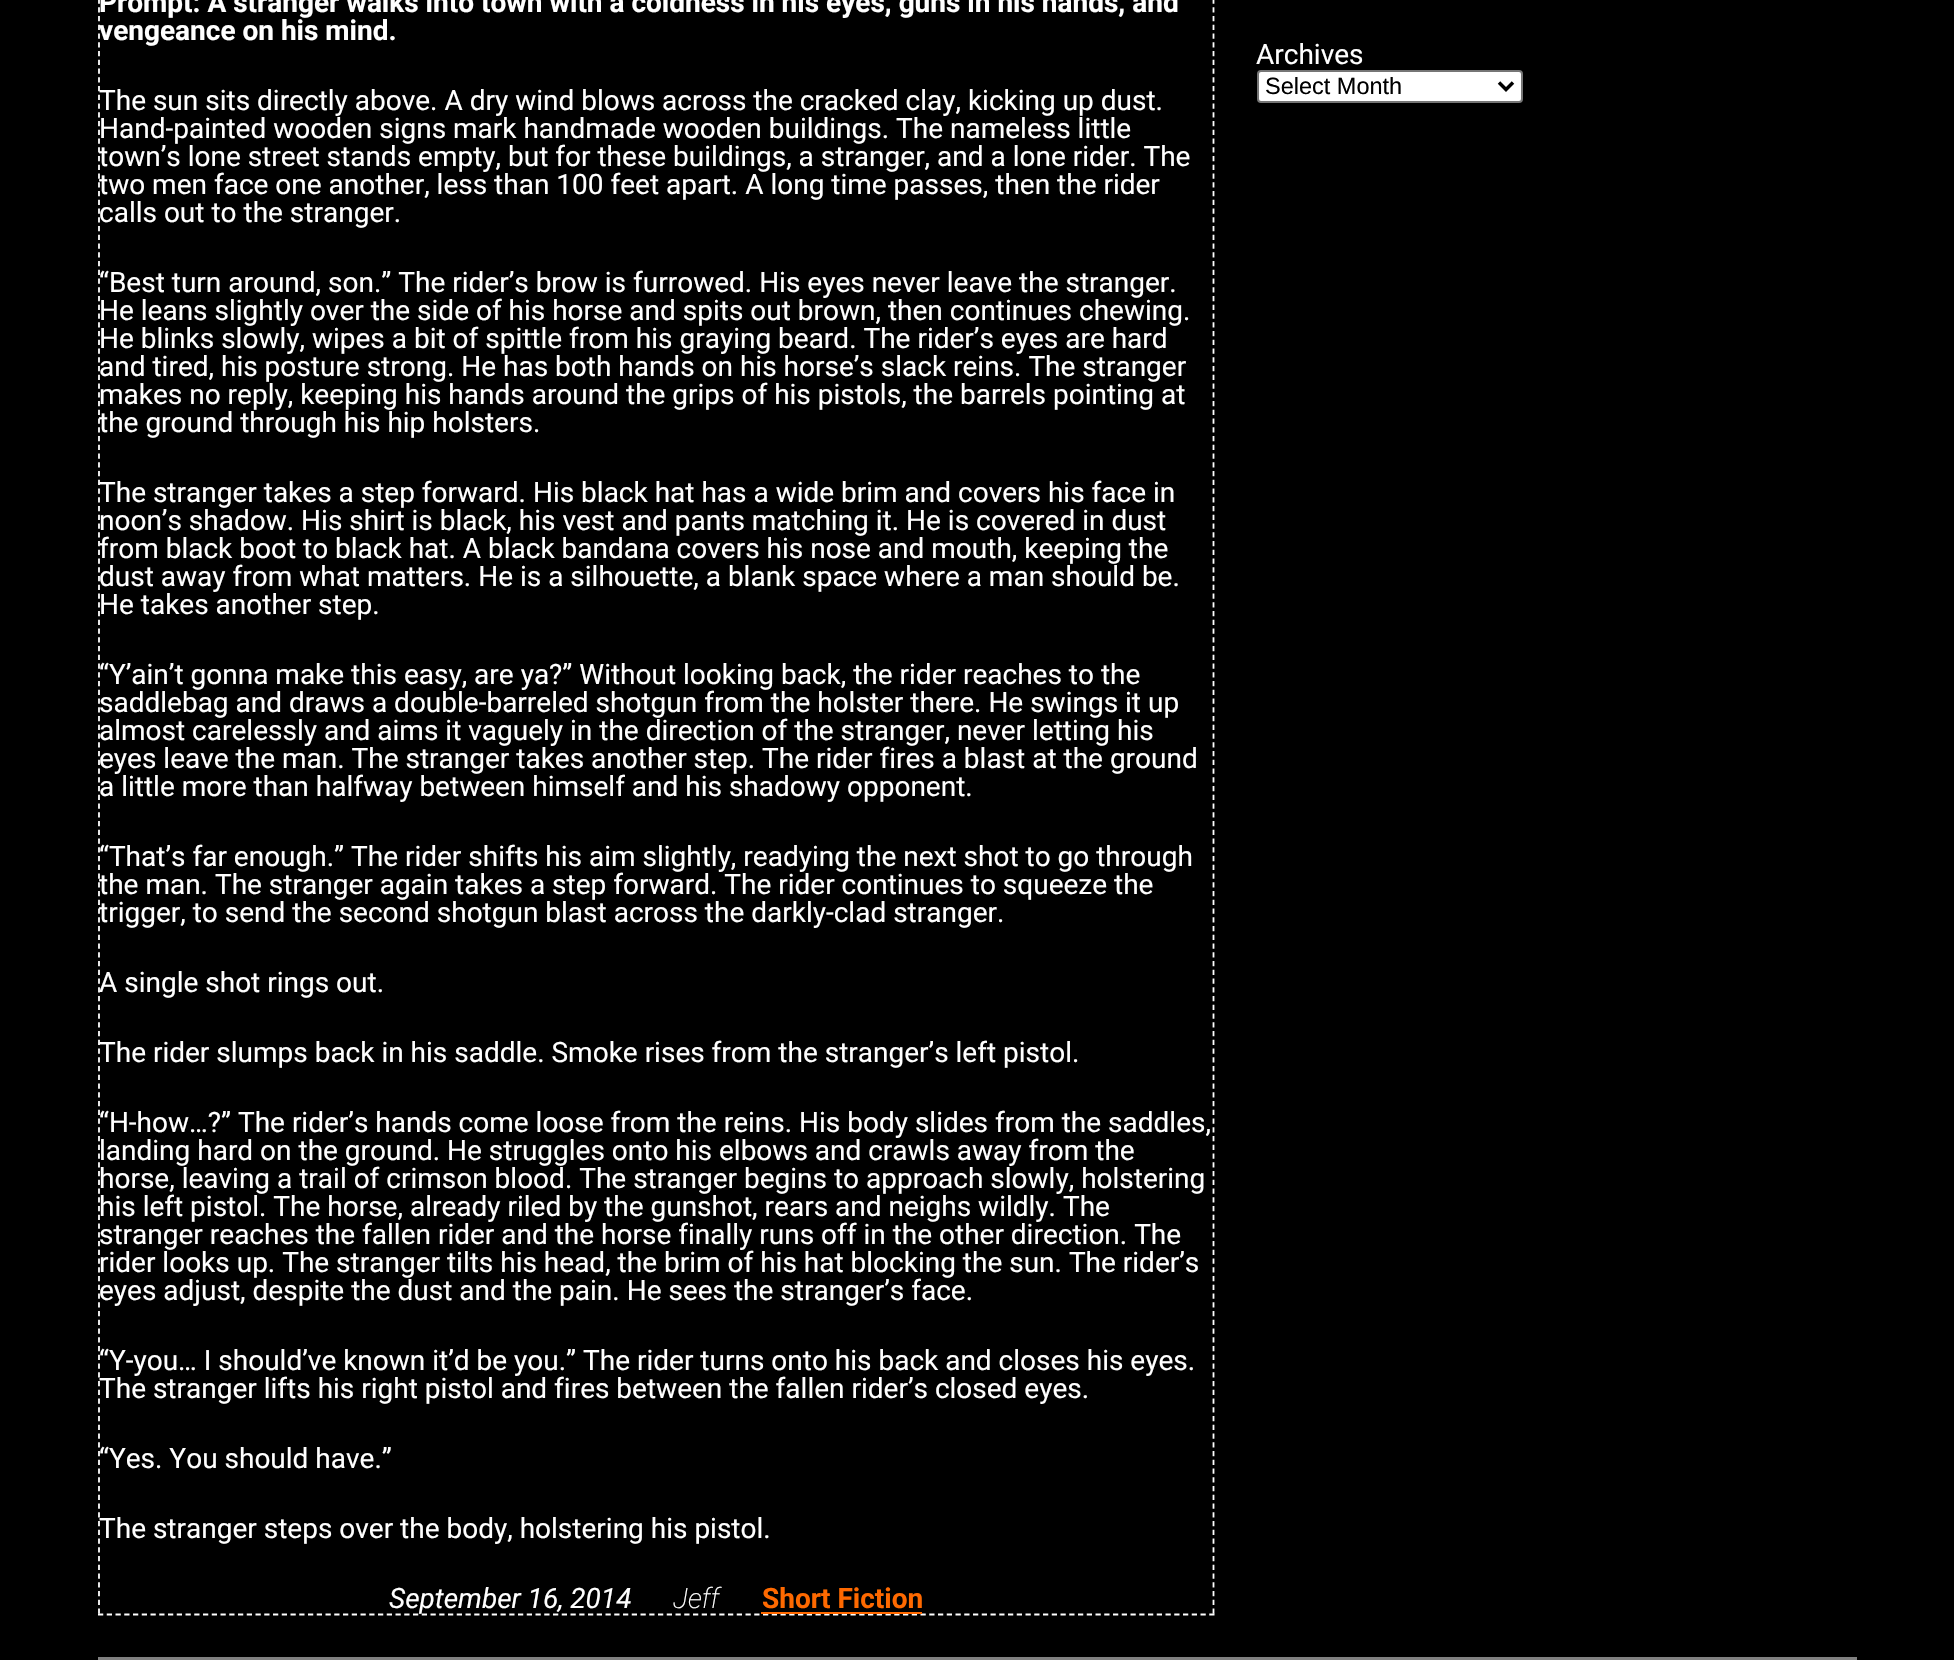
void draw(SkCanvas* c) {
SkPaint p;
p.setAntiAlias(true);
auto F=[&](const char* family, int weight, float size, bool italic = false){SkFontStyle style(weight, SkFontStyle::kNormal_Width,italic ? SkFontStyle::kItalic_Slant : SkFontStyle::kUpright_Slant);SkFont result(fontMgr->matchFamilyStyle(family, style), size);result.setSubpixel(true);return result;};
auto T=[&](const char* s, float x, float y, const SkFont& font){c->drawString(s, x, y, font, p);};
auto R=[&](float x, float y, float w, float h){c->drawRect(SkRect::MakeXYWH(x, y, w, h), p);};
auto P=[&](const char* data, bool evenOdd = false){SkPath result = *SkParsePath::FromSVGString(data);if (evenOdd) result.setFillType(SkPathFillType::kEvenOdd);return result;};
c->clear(0xff000000);
p.setStroke(true);
p.setStrokeWidth(1.8);
p.setColor(0xffffffff);
p.setPathEffect(SkDashPathEffect::Make({{5.25f,3.5f}}, 0));
c->drawPath(P("M1213.5-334v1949"),p);
p.setPathEffect(nullptr);
p.setPathEffect(SkDashPathEffect::Make({{5.25f,3.5f}}, 0));
c->drawPath(P("M98 1614.5h1116.5"),p);
p.setPathEffect(nullptr);
p.setPathEffect(SkDashPathEffect::Make({{5.25f,3.5f}}, 0));
c->drawPath(P("M99-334v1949"),p);
p.setPathEffect(nullptr);
auto f1 = F("Roboto",700,28);
p.setStroke(false);
T("Prompt: A stranger walks into town with a coldness in his eyes, guns in his hands, and",99,12,f1);
T("vengeance on his mind.",99,40,f1);
auto f2 = F("Roboto",400,28);
T("The sun sits directly above. A dry wind blows across the cracked clay, kicking up dust.",99,110,f2);
T("Hand-painted wooden signs mark handmade wooden buildings. The nameless little",99,138,f2);
T("town’s lone street stands empty, but for these buildings, a stranger, and a lone rider. The",99,166,f2);
T("two men face one another, less than 100 feet apart. A long time passes, then the rider",99,194,f2);
T("calls out to the stranger.",99,222,f2);
T("“Best turn around, son.” The rider’s brow is furrowed. His eyes never leave the stranger.",99,292,f2);
T("He leans slightly over the side of his horse and spits out brown, then continues chewing.",99,320,f2);
T("He blinks slowly, wipes a bit of spittle from his graying beard. The rider’s eyes are hard",99,348,f2);
T("and tired, his posture strong. He has both hands on his horse’s slack reins. The stranger",99,376,f2);
T("makes no reply, keeping his hands around the grips of his pistols, the barrels pointing at",99,404,f2);
T("the ground through his hip holsters.",99,432,f2);
T("The stranger takes a step forward. His black hat has a wide brim and covers his face in",99,502,f2);
T("noon’s shadow. His shirt is black, his vest and pants matching it. He is covered in dust",99,530,f2);
T("from black boot to black hat. A black bandana covers his nose and mouth, keeping the",99,558,f2);
T("dust away from what matters. He is a silhouette, a blank space where a man should be.",99,586,f2);
T("He takes another step.",99,614,f2);
T("“Y’ain’t gonna make this easy, are ya?” Without looking back, the rider reaches to the",99,684,f2);
T("saddlebag and draws a double-barreled shotgun from the holster there. He swings it up",99,712,f2);
T("almost carelessly and aims it vaguely in the direction of the stranger, never letting his",99,740,f2);
T("eyes leave the man. The stranger takes another step. The rider fires a blast at the ground",99,768,f2);
T("a little more than halfway between himself and his shadowy opponent.",99,796,f2);
T("“That’s far enough.” The rider shifts his aim slightly, readying the next shot to go through",99,866,f2);
T("the man. The stranger again takes a step forward. The rider continues to squeeze the",99,894,f2);
T("trigger, to send the second shotgun blast across the darkly-clad stranger.",99,922,f2);
T("A single shot rings out.",99,992,f2);
T("The rider slumps back in his saddle. Smoke rises from the stranger’s left pistol.",99,1062,f2);
T("“H-how…?” The rider’s hands come loose from the reins. His body slides from the saddles,",99,1132,f2);
T("landing hard on the ground. He struggles onto his elbows and crawls away from the",99,1160,f2);
T("horse, leaving a trail of crimson blood. The stranger begins to approach slowly, holstering",99,1188,f2);
T("his left pistol. The horse, already riled by the gunshot, rears and neighs wildly. The",99,1216,f2);
T("stranger reaches the fallen rider and the horse finally runs off in the other direction. The",99,1244,f2);
T("rider looks up. The stranger tilts his head, the brim of his hat blocking the sun. The rider’s",99,1272,f2);
T("eyes adjust, despite the dust and the pain. He sees the stranger’s face.",99,1300,f2);
T("“Y-you… I should’ve known it’d be you.” The rider turns onto his back and closes his eyes.",99,1370,f2);
T("The stranger lifts his right pistol and fires between the fallen rider’s closed eyes.",99,1398,f2);
T("“Yes. You should have.”",99,1468,f2);
T("The stranger steps over the body, holstering his pistol.",99,1538,f2);
auto f3 = F("Roboto",400,28,true);
T("September 16, 2014",389,1608,f3);
auto f4 = F("Roboto",200,28,true);
T("Jeff",673,1608,f4);
p.setColor(0xffff6900);
T("Short Fiction",762,1608,f1);
R(761,1612,161,2);
p.setColor(0xffffffff);
T("Archives",1256,64,f2);
c->drawRoundRect(SkRect::MakeXYWH(1258,71,264,31),3,3,p);
p.setStroke(true);
p.setStrokeWidth(2);
p.setColor(0xff767676);
c->drawRoundRect(SkRect::MakeXYWH(1258,71,264,31),3,3,p);
p.setStrokeWidth(3.5);
p.setColor(0xff000000);
c->drawPath(P("M1499 82.5l7 7l7-7"),p);
auto f5 = F("Liberation Sans",400,23.5);
p.setStroke(false);
T("Select Month",1265,94,f5);
p.setColor(0xff808080);
R(98,1657,1759,3);
}
